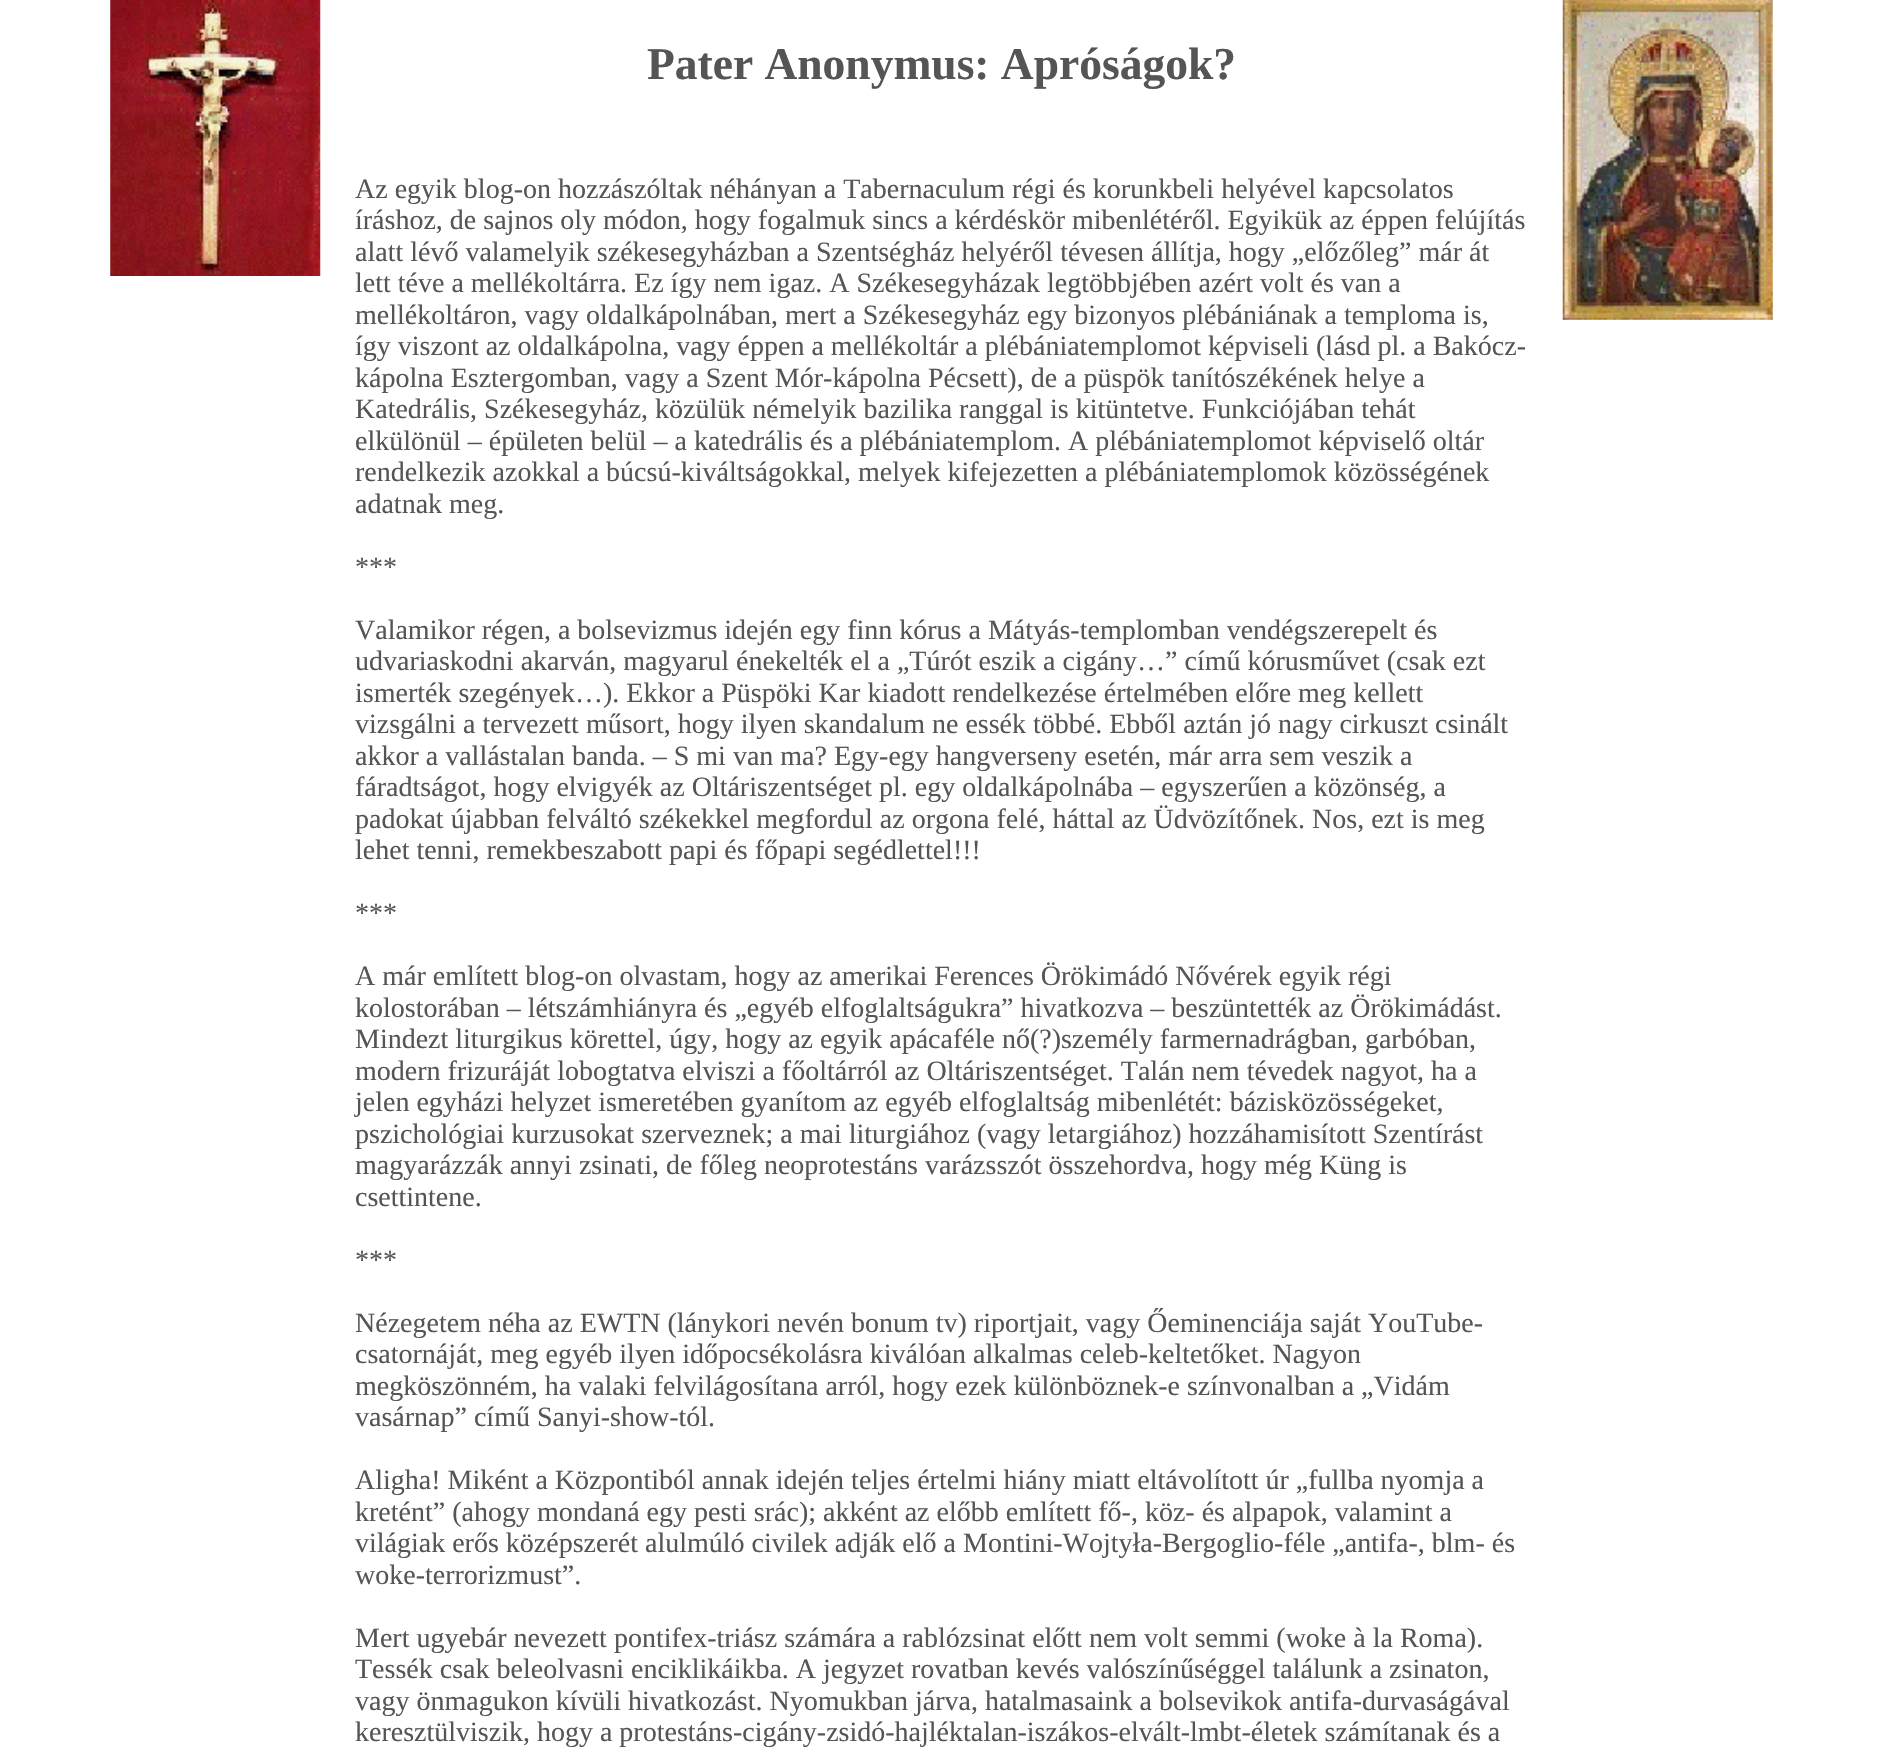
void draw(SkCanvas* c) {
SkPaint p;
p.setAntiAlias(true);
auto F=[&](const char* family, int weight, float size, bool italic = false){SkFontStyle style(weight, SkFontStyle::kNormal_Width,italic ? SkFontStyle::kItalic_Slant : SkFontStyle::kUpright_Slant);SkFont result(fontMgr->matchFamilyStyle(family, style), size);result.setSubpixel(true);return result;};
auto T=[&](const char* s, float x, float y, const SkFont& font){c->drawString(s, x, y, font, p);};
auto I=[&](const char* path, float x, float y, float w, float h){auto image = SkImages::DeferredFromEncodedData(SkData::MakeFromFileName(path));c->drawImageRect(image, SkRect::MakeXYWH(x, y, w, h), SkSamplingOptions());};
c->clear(0xffffffff);
I("1.png",110,0,211,276);
auto f1 = F("Liberation Serif",700,45.5);
p.setColor(0xff555555);
T("Pater Anonymus: Apróságok?",647,79,f1);
auto f2 = F("Liberation Serif",400,28);
T("Az egyik blog-on hozzászóltak néhányan a Tabernaculum régi és korunkbeli helyével kapcsolatos",355,198,f2);
T("íráshoz, de sajnos oly módon, hogy fogalmuk sincs a kérdéskör mibenlétéről. Egyikük az éppen felújítás",355,229,f2);
T("alatt lévő valamelyik székesegyházban a Szentségház helyéről tévesen állítja, hogy „előzőleg” már át",355,261,f2);
T("lett téve a mellékoltárra. Ez így nem igaz. A Székesegyházak legtöbbjében azért volt és van a",355,292,f2);
T("mellékoltáron, vagy oldalkápolnában, mert a Székesegyház egy bizonyos plébániának a temploma is,",355,324,f2);
T("így viszont az oldalkápolna, vagy éppen a mellékoltár a plébániatemplomot képviseli (lásd pl. a Bakócz-",355,355,f2);
T("kápolna Esztergomban, vagy a Szent Mór-kápolna Pécsett), de a püspök tanítószékének helye a",355,387,f2);
T("Katedrális, Székesegyház, közülük némelyik bazilika ranggal is kitüntetve. Funkciójában tehát",355,418,f2);
T("elkülönül – épületen belül – a katedrális és a plébániatemplom. A plébániatemplomot képviselő oltár",355,450,f2);
T("rendelkezik azokkal a búcsú-kiváltságokkal, melyek kifejezetten a plébániatemplomok közösségének",355,481,f2);
T("adatnak meg.",355,513,f2);
T("***",355,576,f2);
T("Valamikor régen, a bolsevizmus idején egy finn kórus a Mátyás-templomban vendégszerepelt és",355,639,f2);
T("udvariaskodni akarván, magyarul énekelték el a „Túrót eszik a cigány…” című kórusművet (csak ezt",355,670,f2);
T("ismerték szegények…). Ekkor a Püspöki Kar kiadott rendelkezése értelmében előre meg kellett",355,702,f2);
T("vizsgálni a tervezett műsort, hogy ilyen skandalum ne essék többé. Ebből aztán jó nagy cirkuszt csinált",355,733,f2);
T("akkor a vallástalan banda. – S mi van ma? Egy-egy hangverseny esetén, már arra sem veszik a",355,765,f2);
T("fáradtságot, hogy elvigyék az Oltáriszentséget pl. egy oldalkápolnába – egyszerűen a közönség, a",355,796,f2);
T("padokat újabban felváltó székekkel megfordul az orgona felé, háttal az Üdvözítőnek. Nos, ezt is meg",355,828,f2);
T("lehet tenni, remekbeszabott papi és főpapi segédlettel!!!",355,859,f2);
T("***",355,922,f2);
T("A már említett blog-on olvastam, hogy az amerikai Ferences Örökimádó Nővérek egyik régi",355,985,f2);
T("kolostorában – létszámhiányra és „egyéb elfoglaltságukra” hivatkozva – beszüntették az Örökimádást.",355,1017,f2);
T("Mindezt liturgikus körettel, úgy, hogy az egyik apácaféle nő(?)személy farmernadrágban, garbóban,",355,1048,f2);
T("modern frizuráját lobogtatva elviszi a főoltárról az Oltáriszentséget. Talán nem tévedek nagyot, ha a",355,1080,f2);
T("jelen egyházi helyzet ismeretében gyanítom az egyéb elfoglaltság mibenlétét: bázisközösségeket,",355,1111,f2);
T("pszichológiai kurzusokat szerveznek; a mai liturgiához (vagy letargiához) hozzáhamisított Szentírást",355,1143,f2);
T("magyarázzák annyi zsinati, de főleg neoprotestáns varázsszót összehordva, hogy még Küng is",355,1174,f2);
T("csettintene.",355,1206,f2);
T("***",355,1269,f2);
T("Nézegetem néha az EWTN (lánykori nevén bonum tv) riportjait, vagy Őeminenciája saját YouTube-",355,1332,f2);
T("csatornáját, meg egyéb ilyen időpocsékolásra kiválóan alkalmas celeb-keltetőket. Nagyon",355,1363,f2);
T("megköszönném, ha valaki felvilágosítana arról, hogy ezek különböznek-e színvonalban a „Vidám",355,1395,f2);
T("vasárnap” című Sanyi-show-tól.",355,1426,f2);
T("Aligha! Miként a Központiból annak idején teljes értelmi hiány miatt eltávolított úr „fullba nyomja a",355,1489,f2);
T("kretént” (ahogy mondaná egy pesti srác); akként az előbb említett fő-, köz- és alpapok, valamint a",355,1521,f2);
T("világiak erős középszerét alulmúló civilek adják elő a Montini-Wojtyła-Bergoglio-féle „antifa-, blm- és",355,1552,f2);
T("woke-terrorizmust”.",355,1584,f2);
T("Mert ugyebár nevezett pontifex-triász számára a rablózsinat előtt nem volt semmi (woke à la Roma).",355,1647,f2);
T("Tessék csak beleolvasni enciklikáikba. A jegyzet rovatban kevés valószínűséggel találunk a zsinaton,",355,1678,f2);
T("vagy önmagukon kívüli hivatkozást. Nyomukban járva, hatalmasaink a bolsevikok antifa-durvaságával",355,1710,f2);
T("keresztülviszik, hogy a protestáns-cigány-zsidó-hajléktalan-iszákos-elvált-lmbt-életek számítanak és a",355,1741,f2);
I("2.png",1562,0,211,320);
}
